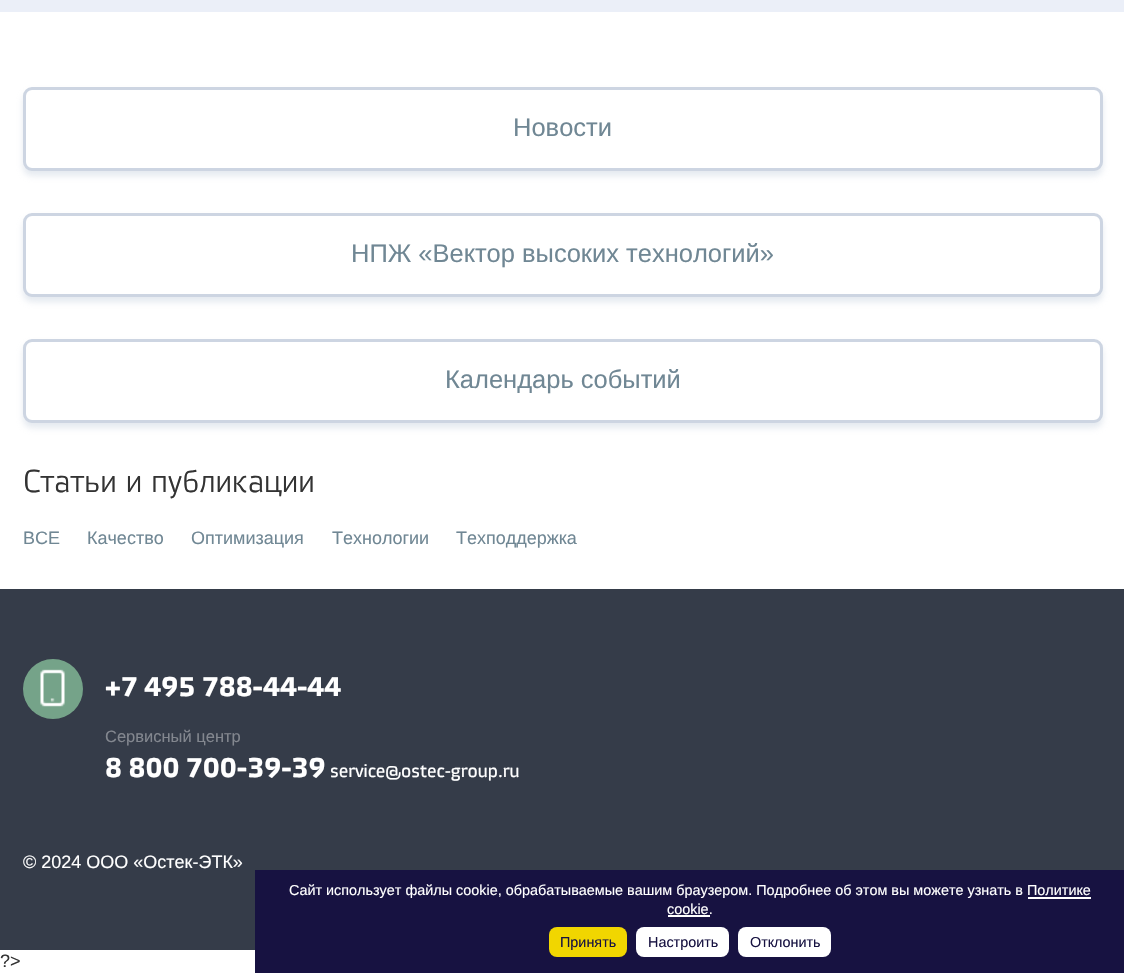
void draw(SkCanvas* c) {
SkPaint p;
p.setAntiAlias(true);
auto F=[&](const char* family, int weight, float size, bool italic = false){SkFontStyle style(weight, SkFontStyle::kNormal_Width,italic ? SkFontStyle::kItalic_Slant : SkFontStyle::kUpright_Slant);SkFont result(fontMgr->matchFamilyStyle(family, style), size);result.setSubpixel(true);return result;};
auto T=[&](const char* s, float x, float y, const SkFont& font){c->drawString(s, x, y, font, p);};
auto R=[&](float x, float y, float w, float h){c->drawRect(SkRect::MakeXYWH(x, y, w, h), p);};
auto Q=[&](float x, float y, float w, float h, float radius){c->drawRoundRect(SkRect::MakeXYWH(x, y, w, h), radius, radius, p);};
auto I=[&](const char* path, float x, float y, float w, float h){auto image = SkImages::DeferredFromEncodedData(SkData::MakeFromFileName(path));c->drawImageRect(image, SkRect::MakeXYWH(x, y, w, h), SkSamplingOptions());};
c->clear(0xffffffff);
p.setColor(0xffebeff8);
R(0,0,1124,12);
p.setColor(0x85cdd6e3);
p.setMaskFilter(SkMaskFilter::MakeBlur(kNormal_SkBlurStyle, 3));
c->drawRoundRect(SkRect::MakeXYWH(23,92,1080,84),9,9,p);
p.setMaskFilter(nullptr);
p.setColor(0xffffffff);
c->drawRoundRect(SkRect::MakeXYWH(24.5,88.5,1077,81),7.5,7.5,p);
p.setStroke(true);
p.setStrokeWidth(3);
p.setColor(0xffcdd5e2);
c->drawRoundRect(SkRect::MakeXYWH(24.5,88.5,1077,81),7.5,7.5,p);
auto f1 = F("Liberation Sans",400,25.5);
p.setStroke(false);
p.setColor(0xff708794);
T("Новости",513,136,f1);
p.setColor(0x85cdd6e3);
p.setMaskFilter(SkMaskFilter::MakeBlur(kNormal_SkBlurStyle, 3));
c->drawRoundRect(SkRect::MakeXYWH(23,218,1080,84),9,9,p);
p.setMaskFilter(nullptr);
p.setColor(0xffffffff);
c->drawRoundRect(SkRect::MakeXYWH(24.5,214.5,1077,81),7.5,7.5,p);
p.setStroke(true);
p.setColor(0xffcdd5e2);
c->drawRoundRect(SkRect::MakeXYWH(24.5,214.5,1077,81),7.5,7.5,p);
p.setStroke(false);
p.setColor(0xff708794);
T("НПЖ «Вектор высоких технологий»",351,262,f1);
p.setColor(0x85cdd6e3);
p.setMaskFilter(SkMaskFilter::MakeBlur(kNormal_SkBlurStyle, 3));
c->drawRoundRect(SkRect::MakeXYWH(23,344,1080,84),9,9,p);
p.setMaskFilter(nullptr);
p.setColor(0xffffffff);
c->drawRoundRect(SkRect::MakeXYWH(24.5,340.5,1077,81),7.5,7.5,p);
p.setStroke(true);
p.setColor(0xffcdd5e2);
c->drawRoundRect(SkRect::MakeXYWH(24.5,340.5,1077,81),7.5,7.5,p);
p.setStroke(false);
p.setColor(0xff708794);
T("Календарь событий",445,388,f1);
auto f2 = F("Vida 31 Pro",400,31.5);
p.setColor(0xff333333);
T("Статьи и публикации",23,492,f2);
auto f3 = F("Liberation Sans",400,18);
p.setColor(0xff708794);
T("ВСЕ",23,544,f3);
T("Качество",87,544,f3);
T("Оптимизация",191,544,f3);
T("Технологии",332,544,f3);
T("Техподдержка",456,544,f3);
p.setColor(0xff353c49);
R(0,589,1124,361);
p.setColor(0xff75a389);
c->drawCircle(53,689,30,p);
I("1.png",40,669,25,38);
auto f4 = F("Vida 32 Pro",700,27);
p.setColor(0xffffffff);
T("+7 495 788-44-44",105,696,f4);
auto f5 = F("Liberation Sans",400,16.5);
p.setColor(0xff83878f);
T("Сервисный центр",105,742,f5);
p.setColor(0xffffffff);
T("8 800 700-39-39",105,777,f4);
auto f6 = F("Vida 32 Pro",400,18);
T("service@ostec-group.ru",330,777,f6);
T("© 2024 ООО «Остек-ЭТК»",23,868,f3);
p.setColor(0xff171241);
R(255,870,869,103);
auto f7 = F("Liberation Sans",400,14.4);
p.setColor(0xffffffff);
T("Сайт использует файлы cookie, обрабатываемые вашим браузером. Подробнее об этом вы можете узнать в Политике",289,895,f7);
T("cookie.",667,914,f7);
R(1028,897,63,2);
R(668,915,42,2);
p.setColor(0xfff1d600);
Q(549,927,78,30,8);
p.setColor(0xff171241);
T("Принять",560,947,f7);
p.setColor(0xffffffff);
Q(636,927,93,30,8);
p.setColor(0xff171241);
T("Настроить",648,947,f7);
p.setColor(0xffffffff);
Q(738,927,93,30,8);
p.setColor(0xff171241);
T("Отклонить",750,947,f7);
p.setColor(0xff333333);
T("?>",0,967,f3);
}
